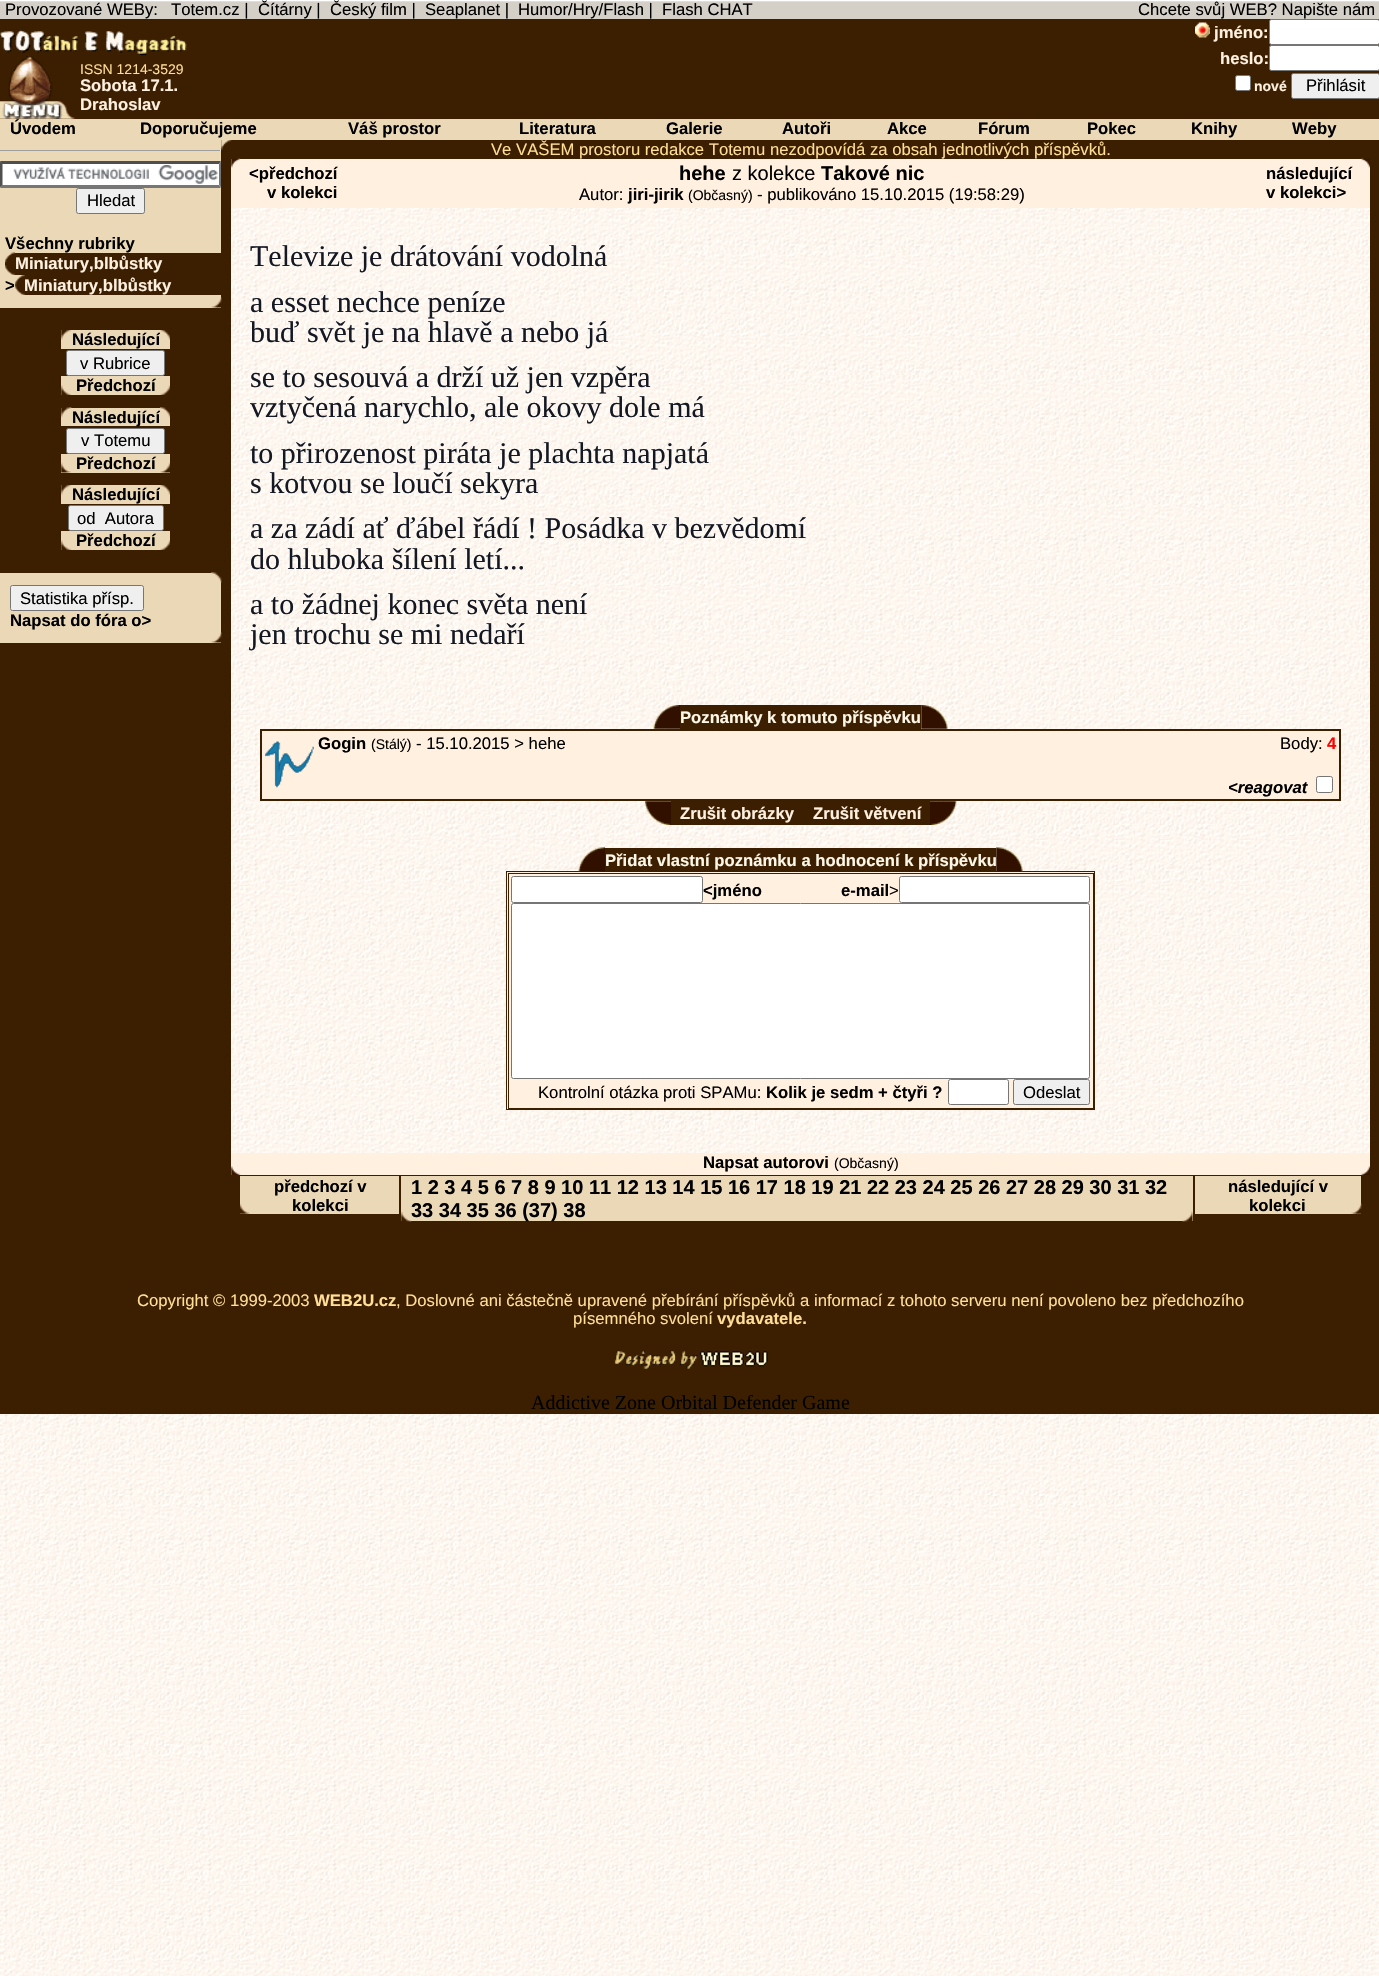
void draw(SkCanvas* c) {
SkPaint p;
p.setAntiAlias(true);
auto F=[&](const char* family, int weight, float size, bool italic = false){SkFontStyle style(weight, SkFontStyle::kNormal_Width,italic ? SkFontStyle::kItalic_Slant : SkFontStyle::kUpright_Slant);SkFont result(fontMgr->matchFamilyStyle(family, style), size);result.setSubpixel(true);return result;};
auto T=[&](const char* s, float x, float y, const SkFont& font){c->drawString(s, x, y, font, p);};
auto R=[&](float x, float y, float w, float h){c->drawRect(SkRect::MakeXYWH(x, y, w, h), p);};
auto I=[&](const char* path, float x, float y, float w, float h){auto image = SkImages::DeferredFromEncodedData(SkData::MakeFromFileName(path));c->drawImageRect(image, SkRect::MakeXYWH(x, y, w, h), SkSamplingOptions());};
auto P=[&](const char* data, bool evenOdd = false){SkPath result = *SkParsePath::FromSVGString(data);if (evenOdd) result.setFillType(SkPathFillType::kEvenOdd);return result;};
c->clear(0xffffffff);
I("1.png",0,208,1379,1768);
p.setColor(0xffd4d0c8);
R(0,2,1379,17);
I("2.png",0,0,1379,2);
auto f1 = F("Liberation Sans",400,16.67);
p.setColor(0xff000000);
T("Provozované WEBy:",5,15,f1);
T("Totem.cz |",171,15,f1);
T("Čítárny |",258,15,f1);
T("Český film |",330,15,f1);
T("Seaplanet |",425,15,f1);
T("Humor/Hry/Flash |",518,15,f1);
T("Flash CHAT",662,15,f1);
T("Chcete svůj WEB? Napište nám",1138,15,f1);
p.setColor(0xff3c1e00);
R(0,19,1379,100);
I("3.png",0,30,187,26);
I("4.png",0,56,76,63);
auto f2 = F("Liberation Sans",400,14);
p.setColor(0xffffde96);
T("ISSN 1214-3529",80,74,f2);
auto f3 = F("Liberation Sans",700,16.67);
p.setColor(0xfffff0e0);
T("Sobota 17.1.",80,91,f3);
T("Drahoslav",80,110,f3);
I("5.png",1195,22,15,16);
T("jméno:",1214,38,f3);
p.setColor(0xffffffff);
c->drawRoundRect(SkRect::MakeXYWH(1269.5,19.5,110,25),2,2,p);
p.setStroke(true);
p.setStrokeWidth(1);
p.setColor(0xff767676);
c->drawRoundRect(SkRect::MakeXYWH(1269.5,19.5,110,25),2,2,p);
p.setStroke(false);
p.setColor(0xfffff0e0);
T("heslo:",1220,64,f3);
p.setColor(0xffffffff);
c->drawRoundRect(SkRect::MakeXYWH(1269.5,45.5,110,25),2,2,p);
p.setStroke(true);
p.setColor(0xff767676);
c->drawRoundRect(SkRect::MakeXYWH(1269.5,45.5,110,25),2,2,p);
p.setStroke(false);
p.setColor(0xffffffff);
c->drawRoundRect(SkRect::MakeXYWH(1235.5,75.5,15,15),2,2,p);
p.setStroke(true);
p.setColor(0xff767676);
c->drawRoundRect(SkRect::MakeXYWH(1235.5,75.5,15,15),2,2,p);
auto f4 = F("Liberation Sans",700,14);
p.setStroke(false);
p.setColor(0xfffff0e0);
T("nové",1254,91,f4);
p.setColor(0xffefefef);
c->drawRoundRect(SkRect::MakeXYWH(1291.5,73.5,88,25),2,2,p);
p.setStroke(true);
p.setColor(0xff767676);
c->drawRoundRect(SkRect::MakeXYWH(1291.5,73.5,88,25),2,2,p);
p.setStroke(false);
p.setColor(0xff000000);
T("Přihlásit",1306,91,f1);
p.setColor(0xffebd8b7);
R(0,119,1379,21);
p.setColor(0xff000000);
T("Úvodem",10,134,f3);
T("Doporučujeme",140,134,f3);
T("Váš prostor",348,134,f3);
T("Literatura",519,134,f3);
T("Galerie",666,134,f3);
T("Autoři",782,134,f3);
T("Akce",887,134,f3);
T("Fórum",978,134,f3);
T("Pokec",1087,134,f3);
T("Knihy",1191,134,f3);
T("Weby",1292,134,f3);
p.setColor(0xff3c1e00);
R(0,140,231,1105);
R(231,140,1139,19);
I("6.png",221,140,11,10);
p.setColor(0xffebd8b7);
R(0,140,221,168);
p.setColor(0xff9f9f9f);
R(0,150,221,1);
p.setColor(0xffeeeeee);
R(220,150,1,1);
p.setColor(0xffffffff);
R(0,161,221,27);
I("7.png",13,165,205,19);
p.setColor(0xff4f4f4f);
c->drawPath(P("M0 161h221l-2 3h-217z"),p);
p.setColor(0xff767676);
c->drawPath(P("M221 161v26.5l-2-2.5v-21z"),p);
c->drawPath(P("M221 188h-221l2-3h217z"),p);
p.setColor(0xff4f4f4f);
c->drawPath(P("M0 187.5v-26.5l2.5 3v21z"),p);
p.setColor(0xffefefef);
c->drawRoundRect(SkRect::MakeXYWH(76.5,188.5,68,25),2,2,p);
p.setStroke(true);
p.setColor(0xff767676);
c->drawRoundRect(SkRect::MakeXYWH(76.5,188.5,68,25),2,2,p);
p.setStroke(false);
p.setColor(0xff000000);
T("Hledat",87,206,f1);
T("Všechny rubriky",5,249,f3);
p.setColor(0xff3c1e00);
R(5,253,216,22);
I("8.png",5,265,10,10);
I("9.png",5,252,10,11);
p.setColor(0xfffff0e0);
T("Miniatury,blbůstky",15,269,f3);
p.setColor(0xff3c1e00);
R(16,275,205,20);
p.setColor(0xff000000);
T(">",5,291,f3);
I("10.png",15,275,10,10);
p.setColor(0xfffff0e0);
T("Miniatury,blbůstky",24,291,f3);
I("8.png",15,285,10,10);
I("11.png",211,297,11,11);
p.setColor(0xffebd8b7);
R(61,330,109,19);
I("12.png",61,330,11,10);
p.setColor(0xff000000);
T("Následující",72,345,f3);
I("13.png",160,330,10,10);
p.setColor(0xffefefef);
c->drawRoundRect(SkRect::MakeXYWH(66.5,350.5,98,25),2,2,p);
p.setStroke(true);
p.setColor(0xff767676);
c->drawRoundRect(SkRect::MakeXYWH(66.5,350.5,98,25),2,2,p);
p.setStroke(false);
p.setColor(0xff000000);
T("v Rubrice",80,369,f1);
p.setColor(0xffebd8b7);
R(61,376,109,19);
I("14.png",61,385,11,10);
p.setColor(0xff000000);
T("Předchozí",76,391,f3);
I("15.png",160,385,10,10);
p.setColor(0xffebd8b7);
R(61,408,109,18);
I("16.png",61,407,11,11);
p.setColor(0xff000000);
T("Následující",72,423,f3);
I("17.png",160,407,10,11);
p.setColor(0xffefefef);
c->drawRoundRect(SkRect::MakeXYWH(66.5,428.5,98,25),2,2,p);
p.setStroke(true);
p.setColor(0xff767676);
c->drawRoundRect(SkRect::MakeXYWH(66.5,428.5,98,25),2,2,p);
p.setStroke(false);
p.setColor(0xff000000);
T("v Totemu",81,446,f1);
p.setColor(0xffebd8b7);
R(61,454,109,19);
I("18.png",61,462,11,11);
p.setColor(0xff000000);
T("Předchozí",76,469,f3);
I("19.png",160,462,10,11);
p.setColor(0xffebd8b7);
R(61,485,109,19);
I("12.png",61,485,11,10);
p.setColor(0xff000000);
T("Následující",72,500,f3);
I("13.png",160,485,10,10);
p.setColor(0xffefefef);
c->drawRoundRect(SkRect::MakeXYWH(68.5,505.5,95,25),2,2,p);
p.setStroke(true);
p.setColor(0xff767676);
c->drawRoundRect(SkRect::MakeXYWH(68.5,505.5,95,25),2,2,p);
p.setStroke(false);
p.setColor(0xff000000);
T("od  Autora",77,524,f1);
p.setColor(0xffebd8b7);
R(61,531,109,19);
I("14.png",61,540,11,10);
p.setColor(0xff000000);
T("Předchozí",76,546,f3);
I("15.png",160,540,10,10);
p.setColor(0xffebd8b7);
R(0,573,221,70);
I("20.png",211,572,11,11);
p.setColor(0xffefefef);
c->drawRoundRect(SkRect::MakeXYWH(10.5,585.5,133,25),2,2,p);
p.setStroke(true);
p.setColor(0xff767676);
c->drawRoundRect(SkRect::MakeXYWH(10.5,585.5,133,25),2,2,p);
p.setStroke(false);
p.setColor(0xff000000);
T("Statistika přísp.",20,604,f1);
T("Napsat do fóra o>",10,626,f3);
I("11.png",211,632,11,11);
p.setColor(0xffffde96);
T("Ve VAŠEM prostoru redakce Totemu nezodpovídá za obsah jednotlivých příspěvků.",491,155,f1);
p.setColor(0xfffff0e0);
R(231,159,1139,49);
I("21.png",231,158,10,10);
I("22.png",1361,158,9,10);
p.setColor(0xff000000);
T("<předchozí",249,179,f3);
T("v kolekci",267,198,f3);
auto f5 = F("Liberation Sans",700,20);
T("hehe",679,180,f5);
auto f6 = F("Liberation Sans",400,20);
T("z kolekce",732,180,f6);
T("Takové nic",821,180,f5);
T("Autor:",579,200,f1);
T("jiri-jirik",628,200,f3);
T("(Občasný)",688,200,f2);
T("- publikováno 15.10.2015 (19:58:29)",757,200,f1);
T("následující",1266,179,f3);
T("v kolekci>",1266,198,f3);
auto f7 = F("Liberation Serif",400,30);
p.setColor(0xff141823);
T("Televize je drátování vodolná",250,266,f7);
T("a esset nechce peníze",250,312,f7);
T("buď svět je na hlavě a nebo já",250,342,f7);
T("se to sesouvá a drží už jen vzpěra",250,387,f7);
T("vztyčená narychlo, ale okovy dole má",250,417,f7);
T("to přirozenost piráta je plachta napjatá",250,463,f7);
T("s kotvou se loučí sekyra",250,493,f7);
T("a za zádí ať ďábel řádí ! Posádka v bezvědomí",250,538,f7);
T("do hluboka šílení letí...",250,569,f7);
T("a to žádnej konec světa není",250,614,f7);
T("jen trochu se mi nedaří",250,644,f7);
I("23.png",653,705,27,24);
p.setColor(0xff3c1e00);
R(680,705,241,24);
p.setColor(0xfffff8e8);
T("Poznámky k tomuto příspěvku",680,723,f3);
I("24.png",921,705,27,24);
p.setColor(0xfffff0e0);
R(262,731,1077,68);
p.setStroke(true);
p.setColor(0xff3c1e00);
c->drawRect(SkRect::MakeXYWH(260.5,729.5,1080,71),p);
c->drawRect(SkRect::MakeXYWH(261.5,730.5,1078,69),p);
I("25.png",265,741,49,47);
p.setStroke(false);
p.setColor(0xff000000);
T("Gogin",318,749,f3);
T("(Stálý)",371,749,f2);
T("- 15.10.2015 > hehe",416,749,f1);
T("Body:",1280,749,f1);
p.setColor(0xffff0000);
T("4",1327,749,f3);
auto f8 = F("Liberation Sans",700,16.67,true);
p.setColor(0xff000000);
T("<reagovat",1228,793,f8);
p.setColor(0xffffffff);
c->drawRoundRect(SkRect::MakeXYWH(1316.5,776.5,16,16),2,2,p);
p.setStroke(true);
p.setColor(0xff767676);
c->drawRoundRect(SkRect::MakeXYWH(1316.5,776.5,16,16),2,2,p);
I("26.png",645,801,26,24);
p.setStroke(false);
p.setColor(0xff3c1e00);
R(671,801,259,24);
p.setColor(0xfffff0e0);
T("Zrušit obrázky",680,819,f3);
T("Zrušit větvení",813,819,f3);
I("27.png",930,801,27,24);
c->drawRect(SkRect::MakeXYWH(506.5,871.5,588,238),p);
p.setStroke(true);
p.setColor(0xff3c1e00);
c->drawRect(SkRect::MakeXYWH(506.5,871.5,588,238),p);
I("28.png",578,847,27,25);
p.setStroke(false);
R(605,848,391,23);
p.setColor(0xfffff8e8);
T("Přidat vlastní poznámku a hodnocení k příspěvku",605,866,f3);
I("29.png",996,847,27,25);
p.setStroke(true);
p.setColor(0xff3c1e00);
c->drawRect(SkRect::MakeXYWH(508.5,873.5,585,235),p);
p.setStroke(false);
p.setColor(0xffffffff);
c->drawRoundRect(SkRect::MakeXYWH(511.5,876.5,191,26),2,2,p);
p.setStroke(true);
p.setColor(0xff767676);
c->drawRoundRect(SkRect::MakeXYWH(511.5,876.5,191,26),2,2,p);
p.setStroke(false);
p.setColor(0xff000000);
T("<jméno",703,896,f3);
T("e-mail",841,896,f3);
T(">",889,896,f1);
p.setColor(0xffffffff);
c->drawRoundRect(SkRect::MakeXYWH(899.5,876.5,190,26),2,2,p);
p.setStroke(true);
p.setColor(0xff767676);
c->drawRoundRect(SkRect::MakeXYWH(899.5,876.5,190,26),2,2,p);
p.setStroke(false);
p.setColor(0xffffffff);
c->drawRoundRect(SkRect::MakeXYWH(511.5,903.5,578,175),2,2,p);
p.setStroke(true);
p.setColor(0xff767676);
c->drawRoundRect(SkRect::MakeXYWH(511.5,903.5,578,175),2,2,p);
p.setStroke(false);
p.setColor(0xff000000);
T("Kontrolní otázka proti SPAMu:",538,1098,f1);
T("Kolik je sedm + čtyři ?",766,1098,f3);
p.setColor(0xffffffff);
c->drawRoundRect(SkRect::MakeXYWH(948.5,1079.5,60,25),2,2,p);
p.setStroke(true);
p.setColor(0xff767676);
c->drawRoundRect(SkRect::MakeXYWH(948.5,1079.5,60,25),2,2,p);
p.setStroke(false);
p.setColor(0xffefefef);
c->drawRoundRect(SkRect::MakeXYWH(1013.5,1079.5,76,25),2,2,p);
p.setStroke(true);
p.setColor(0xff767676);
c->drawRoundRect(SkRect::MakeXYWH(1013.5,1079.5,76,25),2,2,p);
p.setStroke(false);
p.setColor(0xff000000);
T("Odeslat",1023,1098,f1);
p.setColor(0xff3c1e00);
R(1370,140,9,1035);
p.setColor(0xfffff0e0);
R(231,1153,1139,22);
I("30.png",231,1166,10,9);
p.setColor(0xff000000);
T("Napsat autorovi",703,1168,f3);
T("(Občasný)",834,1168,f2);
I("31.png",1361,1166,9,9);
p.setColor(0xff3c1e00);
R(231,1175,1148,70);
p.setColor(0xffebd8b7);
R(240,1176,159,38);
I("32.png",240,1203,10,11);
p.setColor(0xff000000);
T("předchozí v",274,1192,f3);
T("kolekci",292,1211,f3);
p.setColor(0xffebd8b7);
R(401,1176,792,45);
p.setColor(0xff000000);
T("1 2 3 4 5 6 7 8 9 10 11 12 13 14 15 16 17 18 19 21 22 23 24 25 26 27 28 29 30 31 32",411,1194,f5);
T("33 34 35 36 (37) 38",411,1217,f5);
I("33.png",401,1211,11,11);
I("34.png",1182,1211,11,11);
p.setColor(0xffebd8b7);
R(1195,1176,166,38);
p.setColor(0xff000000);
T("následující v",1228,1192,f3);
T("kolekci",1249,1211,f3);
I("35.png",1351,1203,11,11);
p.setColor(0xff3c1e00);
R(0,1245,1379,169);
p.setColor(0xffffde96);
T("Copyright © 1999-2003",137,1306,f1);
T("WEB2U.cz",314,1306,f3);
T(", Doslovné ani částečně upravené přebírání příspěvků a informací z tohoto serveru není povoleno bez předchozího",396,1306,f1);
T("písemného svolení",573,1324,f1);
T("vydavatele.",717,1324,f3);
I("36.png",614,1351,154,18);
auto f9 = F("Liberation Serif",400,20);
p.setColor(0xff000000);
T("Addictive Zone Orbital Defender Game",531,1409,f9);
}
